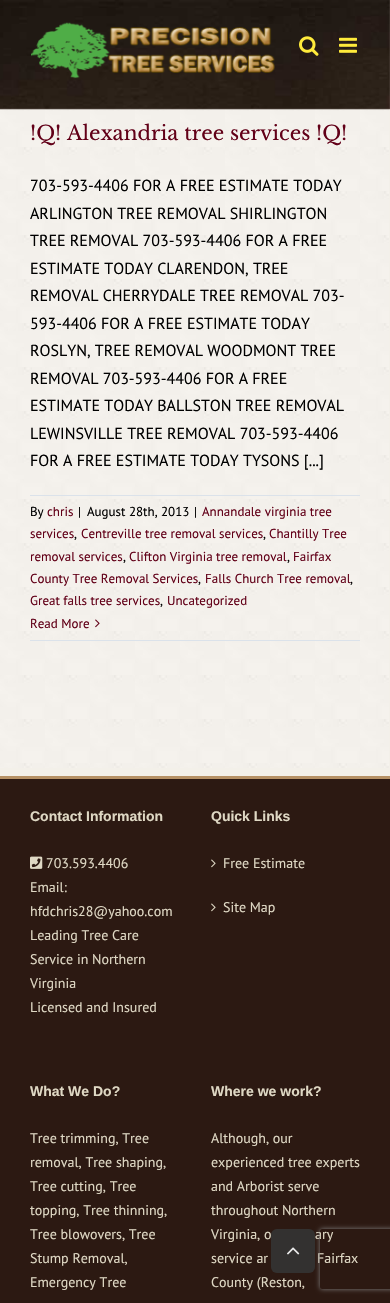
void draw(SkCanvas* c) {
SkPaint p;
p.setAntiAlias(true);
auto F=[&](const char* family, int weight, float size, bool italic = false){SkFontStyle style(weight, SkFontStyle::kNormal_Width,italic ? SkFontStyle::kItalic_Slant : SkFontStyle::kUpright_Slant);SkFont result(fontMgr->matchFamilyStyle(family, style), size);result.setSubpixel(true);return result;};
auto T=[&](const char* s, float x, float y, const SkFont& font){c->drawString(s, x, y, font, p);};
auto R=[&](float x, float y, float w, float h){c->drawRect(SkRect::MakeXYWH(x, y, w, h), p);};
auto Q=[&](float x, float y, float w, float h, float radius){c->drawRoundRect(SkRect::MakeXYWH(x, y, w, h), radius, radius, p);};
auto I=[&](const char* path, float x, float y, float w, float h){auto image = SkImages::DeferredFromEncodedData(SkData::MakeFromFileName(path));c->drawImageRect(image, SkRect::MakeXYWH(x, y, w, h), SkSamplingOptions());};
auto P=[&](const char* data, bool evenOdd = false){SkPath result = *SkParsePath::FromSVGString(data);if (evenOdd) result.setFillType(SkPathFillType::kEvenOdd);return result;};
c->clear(0xfff3f0e9);
I("5.png",0,108,389,660);
p.setColor(0x962c1912);
R(0,0,390,109);
I("1.png",0,0,390,110);
I("2.png",31,22,244,57);
I("3.png",299,36,20,20);
I("4.png",339,37,18,16);
auto f1 = F("Libre Baskerville",400,20);
p.setColor(0xff620018);
T("!Q! Alexandria tree services !Q!",30,140,f1);
auto f2 = F("PT Sans",400,16);
p.setColor(0xff000000);
T("703-593-4406 FOR A FREE ESTIMATE TODAY",30,191,f2);
T("ARLINGTON TREE REMOVAL SHIRLINGTON",30,219,f2);
T("TREE REMOVAL 703-593-4406 FOR A FREE",30,246,f2);
T("ESTIMATE TODAY CLARENDON, TREE",30,274,f2);
T("REMOVAL CHERRYDALE TREE REMOVAL 703-",30,301,f2);
T("593-4406 FOR A FREE ESTIMATE TODAY",30,329,f2);
T("ROSLYN, TREE REMOVAL WOODMONT TREE",30,356,f2);
T("REMOVAL 703-593-4406 FOR A FREE",30,384,f2);
T("ESTIMATE TODAY BALLSTON TREE REMOVAL",30,411,f2);
T("LEWINSVILLE TREE REMOVAL 703-593-4406",30,439,f2);
T("FOR A FREE ESTIMATE TODAY TYSONS [...]",30,466,f2);
p.setColor(0xffdbe2ea);
R(30,495,330,1);
R(30,640,330,1);
auto f3 = F("PT Sans",400,13);
p.setColor(0xff000000);
T("By",30,516,f3);
p.setColor(0xff620018);
T("chris",47,516,f3);
p.setColor(0xff000000);
T("|",78,516,f3);
T("August 28th, 2013",87,516,f3);
T("|",194,516,f3);
p.setColor(0xff620018);
T("Annandale virginia tree",202,516,f3);
T("services",30,538,f3);
p.setColor(0xff000000);
T(",",74,538,f3);
p.setColor(0xff620018);
T("Centreville tree removal services",81,538,f3);
p.setColor(0xff000000);
T(",",263,538,f3);
p.setColor(0xff620018);
T("Chantilly Tree",269,538,f3);
T("removal services",30,561,f3);
p.setColor(0xff000000);
T(",",123,561,f3);
p.setColor(0xff620018);
T("Clifton Virginia tree removal",129,561,f3);
p.setColor(0xff000000);
T(",",287,561,f3);
p.setColor(0xff620018);
T("Fairfax",293,561,f3);
T("County Tree Removal Services",30,583,f3);
p.setColor(0xff000000);
T(",",198,583,f3);
p.setColor(0xff620018);
T("Falls Church Tree removal",205,583,f3);
p.setColor(0xff000000);
T(",",350,583,f3);
p.setColor(0xff620018);
T("Great falls tree services",30,605,f3);
p.setColor(0xff000000);
T(",",160,605,f3);
p.setColor(0xff620018);
T("Uncategorized",167,605,f3);
T("Read More",30,628,f3);
I("6.png",95,619,5,9);
p.setColor(0xff2c1912);
R(0,779,390,524);
p.setColor(0xffb69165);
R(0,776,390,3);
auto f4 = F("Liberation Sans",700,14);
p.setColor(0xffdfd8c4);
T("Contact Information",30,821,f4);
I("7.png",30,856,13,13);
auto f5 = F("PT Sans",400,14);
T("703.593.4406",46,868,f5);
T("Email:",30,892,f5);
T("hfdchris28@yahoo.com",30,916,f5);
T("Leading Tree Care",30,940,f5);
T("Service in Northern",30,964,f5);
T("Virginia",30,988,f5);
T("Licensed and Insured",30,1012,f5);
T("Quick Links",211,821,f4);
I("8.png",211,859,5,9);
T("Free Estimate",223,868,f5);
I("8.png",211,903,5,9);
T("Site Map",223,912,f5);
T("What We Do?",30,1096,f4);
T("Tree trimming, Tree",30,1143,f5);
T("removal, Tree shaping,",30,1167,f5);
T("Tree cutting, Tree",30,1191,f5);
T("topping, Tree thinning,",30,1215,f5);
T("Tree blowovers, Tree",30,1239,f5);
T("Stump Removal,",30,1263,f5);
T("Emergency Tree",30,1287,f5);
T("Where we work?",211,1096,f4);
T("Although, our",211,1143,f5);
T("experienced tree experts",211,1167,f5);
T("and Arborist serve",211,1191,f5);
T("throughout Northern",211,1215,f5);
T("Virginia, o",211,1239,f5);
T("ary",315,1239,f5);
T("service ar",211,1263,f5);
T("Fairfax",317,1263,f5);
T("County (Reston,",211,1287,f5);
c->save();
c->clipPath(P("M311 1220h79v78h-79zm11 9h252c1 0 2 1 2 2v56c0 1-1 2-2 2h-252c-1 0-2-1-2-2v-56c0-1 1-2 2-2z",true),true);
p.setColor(0xff808080);
p.setMaskFilter(SkMaskFilter::MakeBlur(kNormal_SkBlurStyle, 2.5));
c->drawRoundRect(SkRect::MakeXYWH(320,1229,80,60),2,2,p);
p.setMaskFilter(nullptr);
c->restore();
p.setColor(0xe6333333);
Q(271,1229,44,44,6);
I("9.png",287,1247,13,8);
}
